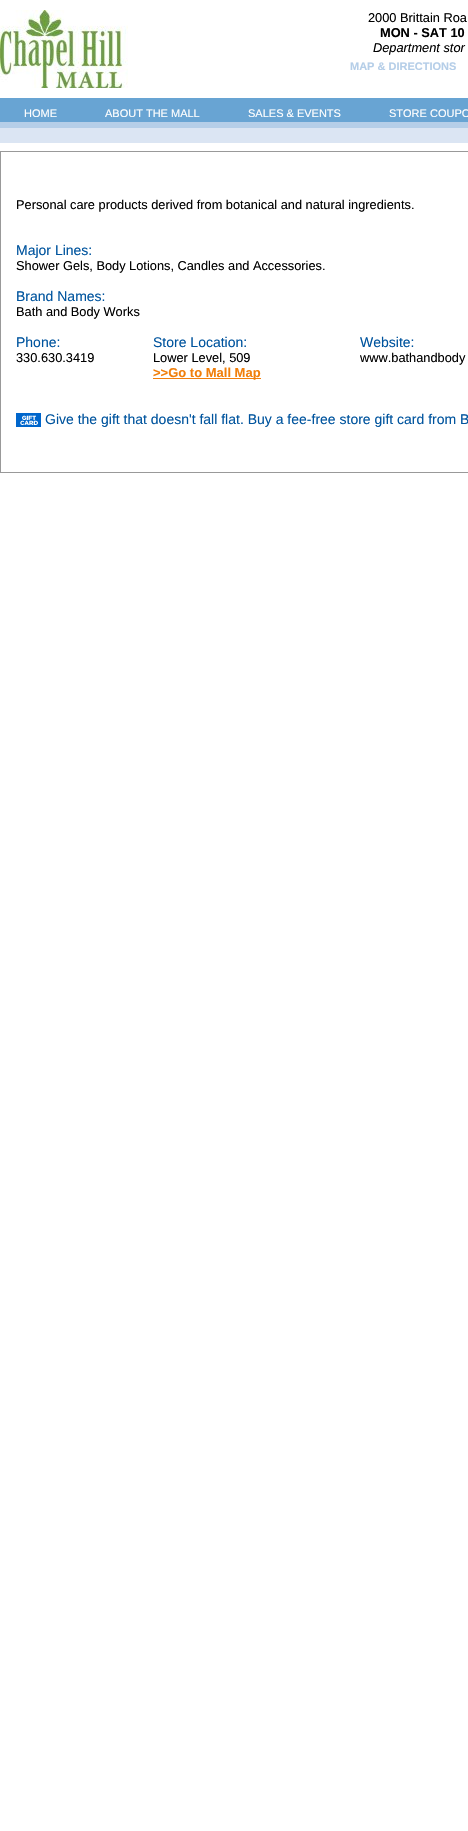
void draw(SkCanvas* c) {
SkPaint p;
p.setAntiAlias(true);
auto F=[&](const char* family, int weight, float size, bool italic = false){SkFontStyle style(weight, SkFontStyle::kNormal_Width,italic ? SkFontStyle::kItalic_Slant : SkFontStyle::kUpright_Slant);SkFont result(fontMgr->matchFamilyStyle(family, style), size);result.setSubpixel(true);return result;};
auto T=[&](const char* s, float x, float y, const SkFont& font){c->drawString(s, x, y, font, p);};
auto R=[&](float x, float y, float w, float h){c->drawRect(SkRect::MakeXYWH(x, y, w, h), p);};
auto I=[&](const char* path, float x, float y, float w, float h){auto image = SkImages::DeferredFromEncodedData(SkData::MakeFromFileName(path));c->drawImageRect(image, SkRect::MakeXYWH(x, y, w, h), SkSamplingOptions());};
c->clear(0xffffffff);
I("1.png",0,10,128,78);
auto f1 = F("Liberation Sans",400,12.8);
p.setColor(0xff000000);
T("2000 Brittain Roa",368,22,f1);
auto f2 = F("Liberation Sans",700,12.8);
T("MON - SAT 10",380,37,f2);
auto f3 = F("Liberation Sans",400,12.8,true);
T("Department stor",373,52,f3);
auto f4 = F("Liberation Sans",700,11);
p.setColor(0xffb5cee8);
T("MAP & DIRECTIONS",350,70,f4);
p.setColor(0xffdbe5f3);
R(0,128,468,15);
p.setColor(0xff68a4d3);
R(0,98,468,24);
auto f5 = F("Liberation Sans",400,11);
p.setColor(0xffffffff);
T("HOME",24,117,f5);
T("ABOUT THE MALL",105,117,f5);
T("SALES & EVENTS",248,117,f5);
T("STORE COUPO",389,117,f5);
p.setColor(0xffb5cee8);
R(0,122,468,6);
p.setStroke(true);
p.setStrokeWidth(1);
p.setColor(0xff999999);
c->drawRect(SkRect::MakeXYWH(.5,151.5,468,321),p);
p.setStroke(false);
p.setColor(0xff000000);
T("Personal care products derived from botanical and natural ingredients.",16,209,f1);
auto f6 = F("Liberation Sans",400,14);
p.setColor(0xff00549e);
T("Major Lines:",16,255,f6);
p.setColor(0xff000000);
T("Shower Gels, Body Lotions, Candles and Accessories.",16,270,f1);
p.setColor(0xff00549e);
T("Brand Names:",16,301,f6);
p.setColor(0xff000000);
T("Bath and Body Works",16,316,f1);
p.setColor(0xff00549e);
T("Phone:",16,347,f6);
p.setColor(0xff000000);
T("330.630.3419",16,362,f1);
p.setColor(0xff00549e);
T("Store Location:",153,347,f6);
p.setColor(0xff000000);
T("Lower Level, 509",153,362,f1);
p.setColor(0xfff17f0b);
R(153,378,108,1);
auto f7 = F("Liberation Sans",700,13);
T(">>Go to Mall Map",153,377,f7);
p.setColor(0xff00549e);
T("Website:",360,347,f6);
p.setColor(0xff000000);
T("www.bathandbody",360,362,f1);
I("2.png",16,413,25,14);
p.setColor(0xff00549e);
T("Give the gift that doesn't fall flat. Buy a fee-free store gift card from B",45,424,f6);
}
